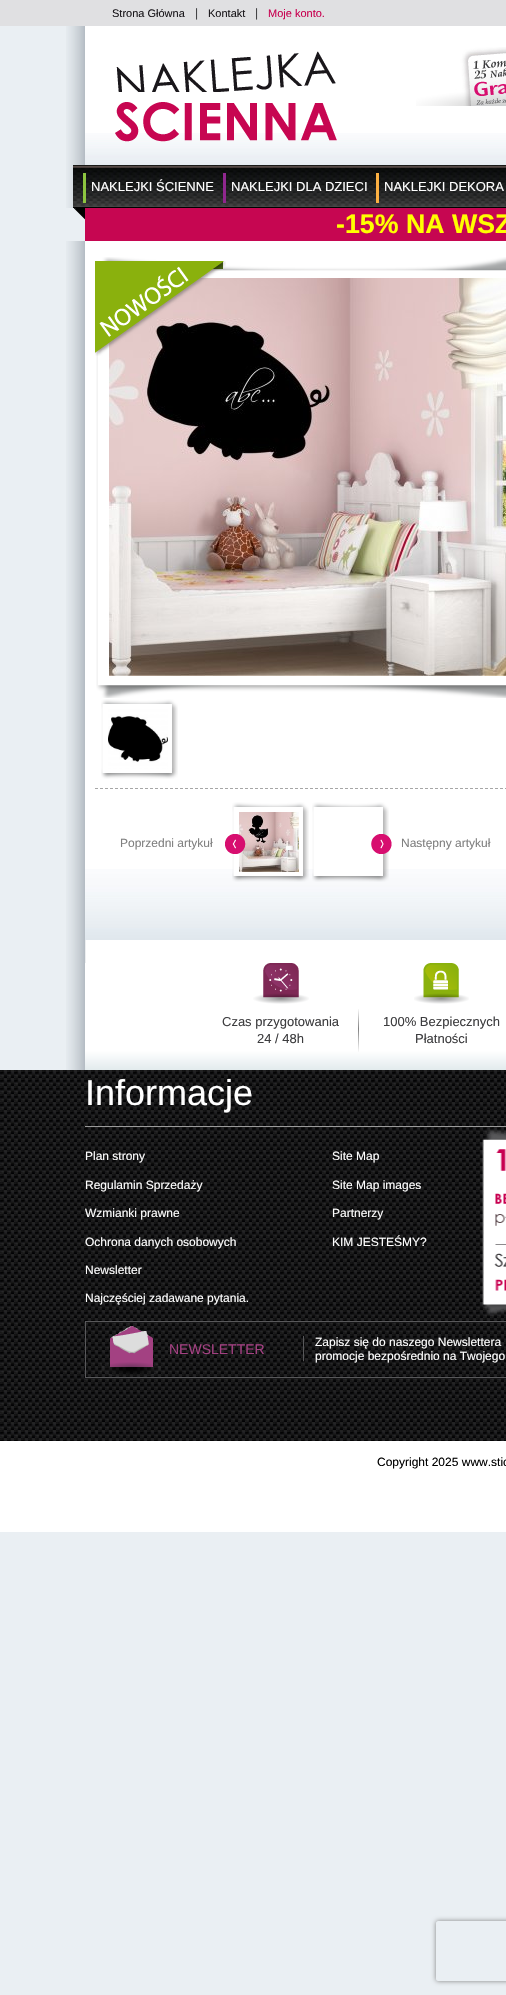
void draw(SkCanvas* c) {
SkPaint p;
p.setAntiAlias(true);
auto F=[&](const char* family, int weight, float size, bool italic = false){SkFontStyle style(weight, SkFontStyle::kNormal_Width,italic ? SkFontStyle::kItalic_Slant : SkFontStyle::kUpright_Slant);SkFont result(fontMgr->matchFamilyStyle(family, style), size);result.setSubpixel(true);return result;};
auto T=[&](const char* s, float x, float y, const SkFont& font){c->drawString(s, x, y, font, p);};
auto R=[&](float x, float y, float w, float h){c->drawRect(SkRect::MakeXYWH(x, y, w, h), p);};
auto I=[&](const char* path, float x, float y, float w, float h){auto image = SkImages::DeferredFromEncodedData(SkData::MakeFromFileName(path));c->drawImageRect(image, SkRect::MakeXYWH(x, y, w, h), SkSamplingOptions());};
auto P=[&](const char* data, bool evenOdd = false){SkPath result = *SkParsePath::FromSVGString(data);if (evenOdd) result.setFillType(SkPathFillType::kEvenOdd);return result;};
c->clear(0xffeaeff3);
p.setColor(0xffe0e0e2);
R(0,0,506,26);
auto f1 = F("Liberation Sans",400,11);
p.setColor(0xff1a171b);
T("Strona Główna",112,17,f1);
auto f2 = F("Liberation Sans",400,12);
p.setColor(0xff3d3d3f);
T("|",195,17,f2);
p.setColor(0xff1a171b);
T("Kontakt",208,17,f1);
p.setColor(0xff3d3d3f);
T("|",255,17,f2);
p.setColor(0xffc80050);
T("Moje konto.",268,17,f1);
I("1.png",66,26,19,182);
p.setColor(0xffffffff);
R(85,26,421,107);
I("2.png",85,133,421,32);
I("3.png",115,51,222,91);
I("4.png",416,47,90,59);
I("5.png",73,165,433,43);
p.setColor(0xff8dc540);
R(83,173,3,30);
auto f3 = F("Liberation Sans",400,13);
p.setColor(0xffffffff);
T("NAKLEJKI ŚCIENNE",91,191,f3);
p.setColor(0xff90278e);
R(223,173,3,30);
p.setColor(0xffffffff);
T("NAKLEJKI DLA DZIECI",231,191,f3);
p.setColor(0xfffcb042);
R(376,173,3,30);
p.setColor(0xffffffff);
T("NAKLEJKI DEKORA",384,191,f3);
I("6.png",74,208,11,12);
p.setColor(0xffc60651);
R(85,208,421,33);
auto f4 = F("Liberation Sans",700,26.75);
p.setColor(0xffffff00);
T("-15% NA WSZ",336,233,f4);
I("7.png",66,241,19,699);
p.setColor(0xffffffff);
R(85,241,421,628);
I("8.png",85,869,421,71);
I("9.png",96,257,410,441);
I("11.png",109,278,397,398);
I("10.png",95,261,131,95);
I("12.png",101,699,77,80);
I("13.png",108,709,60,60);
p.setStroke(true);
p.setStrokeWidth(1);
p.setColor(0xffa6a6a6);
p.setPathEffect(SkDashPathEffect::Make({{3,2}}, 0));
c->drawPath(P("M95 788.5h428"),p);
p.setPathEffect(nullptr);
I("14.png",232,802,77,80);
I("16.png",239,812,60,60);
I("15.png",225,834,21,20);
p.setStroke(false);
p.setColor(0xff808080);
T("Poprzedni artykuł",120,847,f2);
I("14.png",312,802,77,80);
I("17.png",371,834,21,20);
T("Następny artykuł",401,847,f2);
I("18.png",66,940,440,130);
{
const SkColor colors[] = {0xffffffff,0xffe2eaed};
const float stops[] = {.82,1};
const SkPoint ends[] = {{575,963}, {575,1070}};
p.setShader(SkGradientShader::MakeLinear(ends, colors, stops, 2, SkTileMode::kClamp));
p.setAlpha(255);
}
R(85,963,421,107);
I("19.png",358,1009,1,43);
I("20.png",253,963,56,41);
p.setShader(nullptr);
p.setColor(0xff3d3d3f);
T("Czas przygotowania",222,1026,f3);
T("24 / 48h",257,1043,f3);
I("21.png",414,963,55,41);
T("100% Bezpiecznych",383,1026,f3);
T("Płatności",415,1043,f3);
I("22.png",0,1070,506,371);
p.setColor(0xff9a9a9a);
R(85,1126,421,1);
auto f5 = F("Liberation Sans",400,36);
p.setColor(0xffffffff);
T("Informacje",85,1105,f5);
T("Plan strony",85,1160,f2);
T("Regulamin Sprzedaży",85,1189,f2);
T("Wzmianki prawne",85,1217,f2);
T("Ochrona danych osobowych",85,1246,f2);
T("Newsletter",85,1274,f2);
T("Najczęściej zadawane pytania.",85,1302,f2);
T("Site Map",332,1160,f2);
T("Site Map images",332,1189,f2);
T("Partnerzy",332,1217,f2);
T("KIM JESTEŚMY?",332,1246,f2);
I("23.png",482,1128,24,188);
I("24.png",101,1326,203,51);
p.setStroke(true);
p.setColor(0xff58585a);
c->drawRect(SkRect::MakeXYWH(85.5,1321.5,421,56),p);
auto f6 = F("Liberation Sans",400,14);
p.setStroke(false);
p.setColor(0xffa34182);
T("NEWSLETTER",169,1354,f6);
p.setColor(0xffffffff);
T("Zapisz się do naszego Newslettera",315,1346,f2);
T("promocje bezpośrednio na Twojego",315,1360,f2);
R(0,1441,506,91);
p.setColor(0xff000000);
T("Copyright 2025 www.stic",377,1466,f2);
c->save();
c->clipPath(P("M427 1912h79v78h-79zm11 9h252c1 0 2 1 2 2v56c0 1-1 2-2 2h-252c-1 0-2-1-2-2v-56c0-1 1-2 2-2z",true),true);
p.setColor(0xff808080);
p.setMaskFilter(SkMaskFilter::MakeBlur(kNormal_SkBlurStyle, 2.5));
c->drawRoundRect(SkRect::MakeXYWH(436,1921,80,60),2,2,p);
p.setMaskFilter(nullptr);
c->restore();
}
